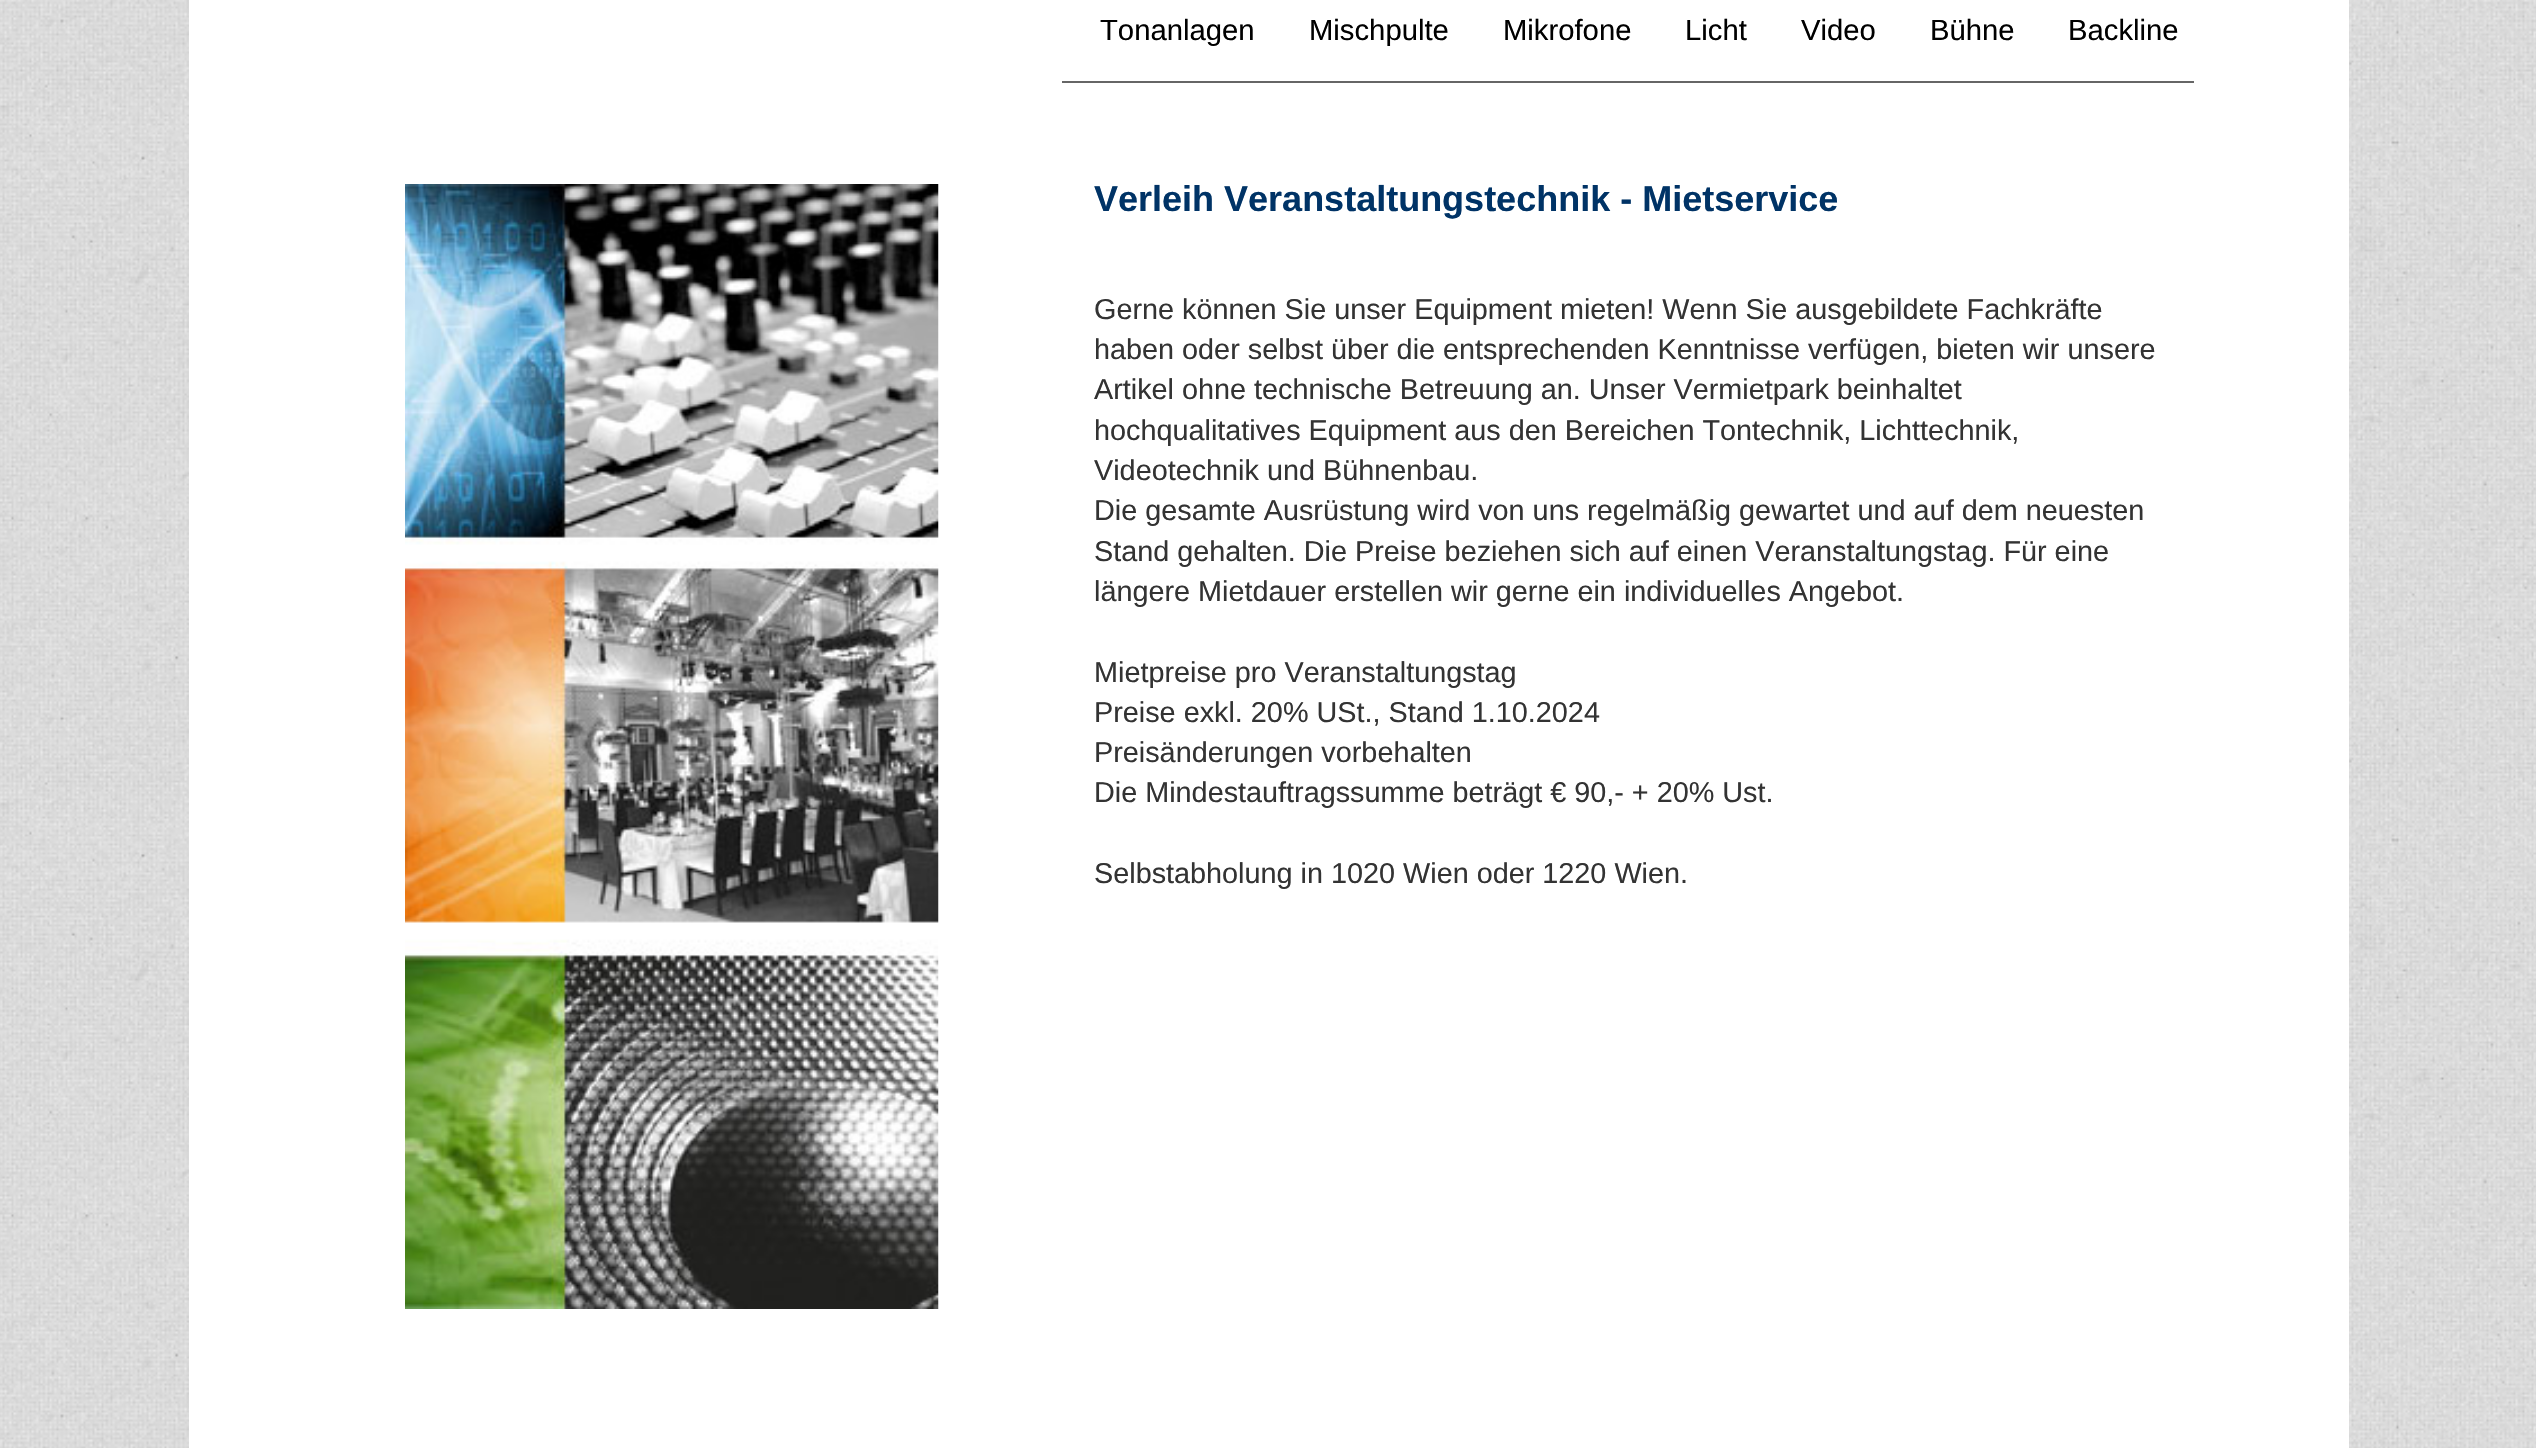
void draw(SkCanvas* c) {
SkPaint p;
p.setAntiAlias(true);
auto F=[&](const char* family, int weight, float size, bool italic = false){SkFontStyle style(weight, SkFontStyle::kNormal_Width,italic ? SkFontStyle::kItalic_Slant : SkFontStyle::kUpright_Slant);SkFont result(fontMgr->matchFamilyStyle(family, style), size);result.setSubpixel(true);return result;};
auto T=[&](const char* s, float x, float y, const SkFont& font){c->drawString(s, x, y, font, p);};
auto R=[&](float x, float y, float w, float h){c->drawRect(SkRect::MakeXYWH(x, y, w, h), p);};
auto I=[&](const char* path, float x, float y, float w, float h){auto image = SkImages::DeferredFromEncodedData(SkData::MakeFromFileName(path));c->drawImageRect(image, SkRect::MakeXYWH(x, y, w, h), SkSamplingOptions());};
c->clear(0xffffffff);
I("1.png",0,0,2536,1448);
p.setColor(0xffffffff);
R(189,0,2160,1448);
p.setColor(0xff666666);
R(1062,81,1132,2);
auto f1 = F("Liberation Sans",400,29.25);
p.setColor(0xff000000);
T("Tonanlagen",1100,40,f1);
T("Mischpulte",1309,40,f1);
T("Mikrofone",1503,40,f1);
T("Licht",1685,40,f1);
T("Video",1801,40,f1);
T("Bühne",1930,40,f1);
T("Backline",2068,40,f1);
I("2.png",405,184,534,1125);
auto f2 = F("Liberation Sans",700,36);
p.setColor(0xff003366);
T("Verleih Veranstaltungstechnik - Mietservice",1094,211,f2);
auto f3 = F("Liberation Sans",400,28.8);
p.setColor(0xff333333);
T("Gerne können Sie unser Equipment mieten! Wenn Sie ausgebildete Fachkräfte",1094,319,f3);
T("haben oder selbst über die entsprechenden Kenntnisse verfügen, bieten wir unsere",1094,359,f3);
T("Artikel ohne technische Betreuung an. Unser Vermietpark beinhaltet",1094,399,f3);
T("hochqualitatives Equipment aus den Bereichen Tontechnik, Lichttechnik,",1094,440,f3);
T("Videotechnik und Bühnenbau.",1094,480,f3);
T("Die gesamte Ausrüstung wird von uns regelmäßig gewartet und auf dem neuesten",1094,520,f3);
T("Stand gehalten. Die Preise beziehen sich auf einen Veranstaltungstag. Für eine",1094,561,f3);
T("längere Mietdauer erstellen wir gerne ein individuelles Angebot.",1094,601,f3);
T("Mietpreise pro Veranstaltungstag",1094,682,f3);
T("Preise exkl. 20% USt., Stand 1.10.2024",1094,722,f3);
T("Preisänderungen vorbehalten",1094,762,f3);
T("Die Mindestauftragssumme beträgt € 90,- + 20% Ust.",1094,802,f3);
T("Selbstabholung in 1020 Wien oder 1220 Wien.",1094,883,f3);
}
